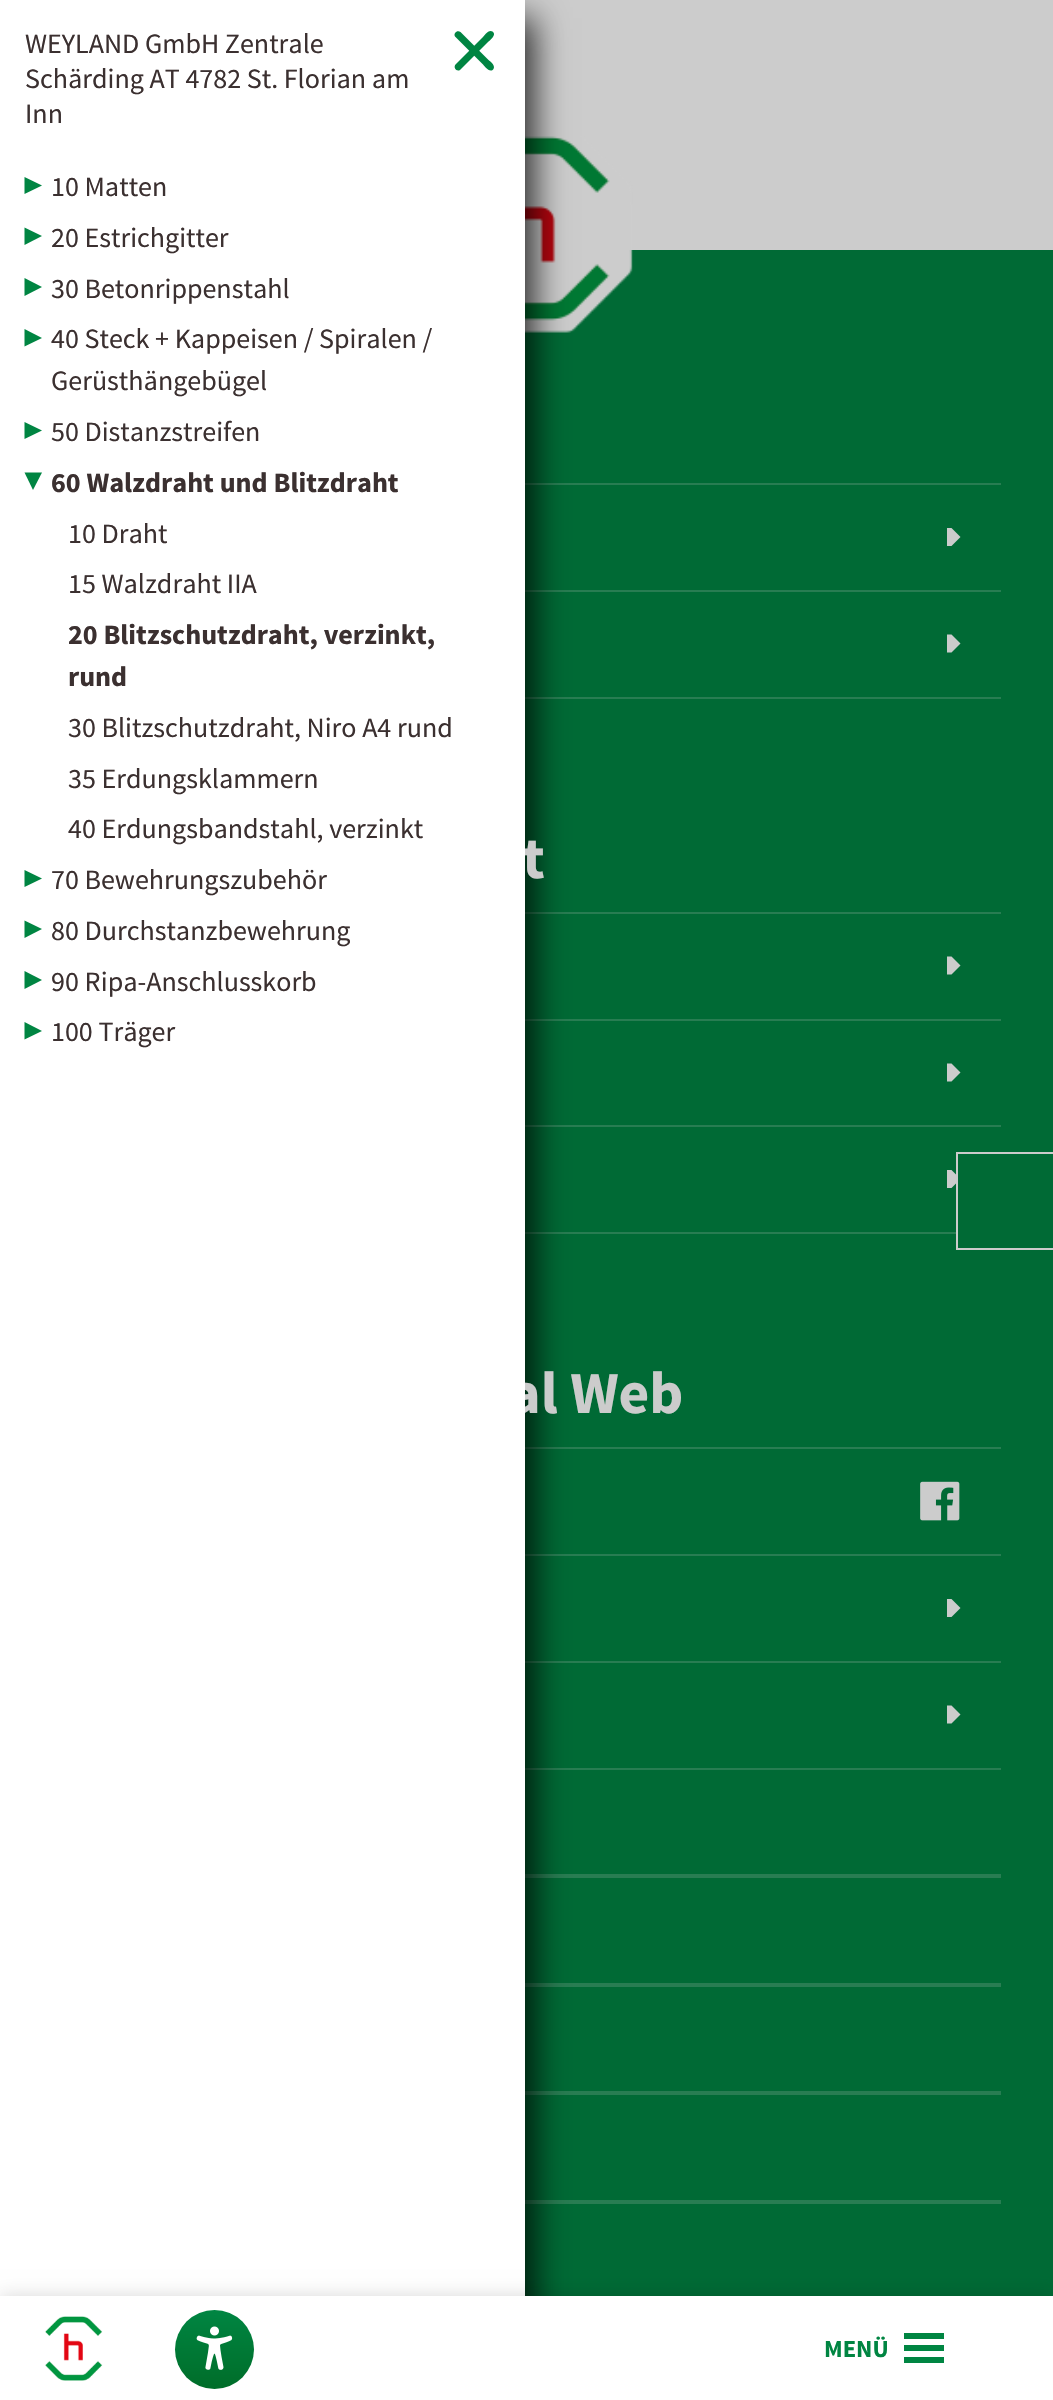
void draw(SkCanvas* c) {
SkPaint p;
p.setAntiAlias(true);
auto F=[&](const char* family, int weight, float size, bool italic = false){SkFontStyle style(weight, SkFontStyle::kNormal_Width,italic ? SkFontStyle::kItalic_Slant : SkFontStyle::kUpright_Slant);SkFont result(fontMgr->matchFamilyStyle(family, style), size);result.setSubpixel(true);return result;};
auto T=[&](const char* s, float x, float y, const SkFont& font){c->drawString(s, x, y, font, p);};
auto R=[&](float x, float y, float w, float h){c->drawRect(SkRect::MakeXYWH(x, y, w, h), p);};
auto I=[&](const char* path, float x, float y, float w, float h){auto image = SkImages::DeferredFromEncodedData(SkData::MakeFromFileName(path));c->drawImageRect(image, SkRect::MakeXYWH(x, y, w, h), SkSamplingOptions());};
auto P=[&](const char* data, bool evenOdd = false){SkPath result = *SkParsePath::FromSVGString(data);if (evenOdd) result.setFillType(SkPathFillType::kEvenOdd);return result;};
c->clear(0xffcccccc);
p.setColor(0xff006a35);
R(525,250,528,2046);
I("2.png",525,136,108,197);
p.setColor(0xff287d52);
R(525,483,476,2);
R(525,590,476,2);
R(525,697,476,2);
R(525,912,476,2);
R(525,1019,476,2);
R(525,1125,476,2);
R(525,1232,431,2);
R(525,1447,476,2);
R(525,1554,476,2);
R(525,1661,476,2);
R(525,1768,476,2);
R(525,1874,476,4);
R(525,1983,476,4);
R(525,2091,476,4);
R(525,2200,476,4);
p.setColor(0xcc000000);
p.setMaskFilter(SkMaskFilter::MakeBlur(kNormal_SkBlurStyle, 16));
c->drawRect(SkRect::MakeXYWH(9,18,525,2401),p);
p.setMaskFilter(nullptr);
auto f1 = F("Source Sans Pro",700,59.5);
p.setColor(0xffcccccc);
T("t",522,878,f1);
T("al Web",509,1413,f1);
p.setColor(0xffffffff);
R(0,0,525,2296);
auto f2 = F("Source Sans Pro",400,28);
p.setColor(0xff3b3030);
T("WEYLAND GmbH Zentrale",25,53,f2);
T("Schärding AT 4782 St. Florian am",25,88,f2);
T("Inn",25,123,f2);
p.setColor(0xff008542);
c->drawPath(P("M455.5 64.5l27-27c1.5-1.5 6-8.5 10-6c5 3.5-3.5 9.5-5 11l-27.5 27.5c-3.5 2-7-2.5-4.5-5.5z"),p);
c->drawPath(P("M460.5 32l27 27c1.5 1.5 8.5 6 6 10c-3.5 5-9.5-3.5-11-5l-27.5-27.5c-2-3.5 2.5-7 5.5-4.5z"),p);
c->drawPath(P("M24.5 194v-17l17.5 8.5z"),p);
p.setColor(0xff3b3030);
T("10 Matten",51,196,f2);
p.setColor(0xff008542);
c->drawPath(P("M24.5 245v-17.5l17.5 8.5z"),p);
p.setColor(0xff3b3030);
T("20 Estrichgitter",51,247,f2);
p.setColor(0xff008542);
c->drawPath(P("M24.5 296v-18l17.5 9z"),p);
p.setColor(0xff3b3030);
T("30 Betonrippenstahl",51,298,f2);
p.setColor(0xff008542);
c->drawPath(P("M24.5 346.5v-17.5l17.5 9z"),p);
p.setColor(0xff3b3030);
T("40 Steck + Kappeisen / Spiralen /",51,348,f2);
T("Gerüsthängebügel",51,390,f2);
p.setColor(0xff008542);
c->drawPath(P("M24.5 439v-17l17.5 8.5z"),p);
p.setColor(0xff3b3030);
T("50 Distanzstreifen",51,441,f2);
p.setColor(0xff008542);
c->drawPath(P("M24.5 472.5h17.5l-9 17.5z"),p);
auto f3 = F("Source Sans Pro",700,28);
p.setColor(0xff3b3030);
T("60 Walzdraht und Blitzdraht",51,492,f3);
T("10 Draht",68,543,f2);
T("15 Walzdraht IIA",68,593,f2);
T("20 Blitzschutzdraht, verzinkt,",68,644,f3);
T("rund",68,686,f3);
T("30 Blitzschutzdraht, Niro A4 rund",68,737,f2);
T("35 Erdungsklammern",68,788,f2);
T("40 Erdungsbandstahl, verzinkt",68,838,f2);
p.setColor(0xff008542);
c->drawPath(P("M24.5 887v-17l17.5 8.5z"),p);
p.setColor(0xff3b3030);
T("70 Bewehrungszubehör",51,889,f2);
p.setColor(0xff008542);
c->drawPath(P("M24.5 938v-17.5l17.5 8.5z"),p);
p.setColor(0xff3b3030);
T("80 Durchstanzbewehrung",51,940,f2);
p.setColor(0xff008542);
c->drawPath(P("M24.5 989v-18l17.5 9z"),p);
p.setColor(0xff3b3030);
T("90 Ripa-Anschlusskorb",51,991,f2);
p.setColor(0xff008542);
c->drawPath(P("M24.5 1039.5v-17.5l17.5 9z"),p);
p.setColor(0xff3b3030);
T("100 Träger",51,1041,f2);
p.setColor(0xffcccccc);
c->drawPath(P("M947 1170h4.5l9 9l-9 9h-4.5z"),p);
p.setColor(0xff006a35);
R(958,1176,3,6);
p.setColor(0xffcccccc);
R(956,1152,97,2);
R(956,1248,97,2);
R(956,1152,2,98);
p.setColor(0x26000000);
p.setMaskFilter(SkMaskFilter::MakeBlur(kNormal_SkBlurStyle, 9));
c->drawRect(SkRect::MakeXYWH(0,2296,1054,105),p);
p.setMaskFilter(nullptr);
p.setColor(0xffffffff);
R(0,2296,1053,104);
I("1.png",45,2316,58,65);
auto f4 = F("Source Sans Pro",700,24.5);
p.setColor(0xff008542);
T("MENÜ",824,2357,f4);
c->drawPath(P("M904 2363v-6h40v6zm0-18h40v6h-40zm0-12h40v6h-40z"),p);
p.setColor(0xffcccccc);
c->drawPath(P("M947 528h4.5l9 9l-9 9h-4.5z"),p);
c->drawPath(P("M947 634.5h4.5l9 9l-9 9h-4.5z"),p);
c->drawPath(P("M947 956.5h4.5l9 9l-9 9h-4.5z"),p);
c->drawPath(P("M947 1063.5h4.5l9 9l-9 9h-4.5z"),p);
I("3.png",920,1481,40,40);
c->drawPath(P("M947 1599h4.5l9 9l-9 9h-4.5z"),p);
c->drawPath(P("M947 1705.5h4.5l9 9l-9 9h-4.5z"),p);
{
const SkColor colors[] = {0xff008542,0xff006d29};
const float stops[] = {0,1};
const SkPoint ends[] = {{214,2310}, {214,2389}};
p.setShader(SkGradientShader::MakeLinear(ends, colors, stops, 2, SkTileMode::kClamp));
p.setAlpha(255);
}
c->drawCircle(214.5,2349.5,39.5,p);
I("4.png",196,2326,37,44);
}
